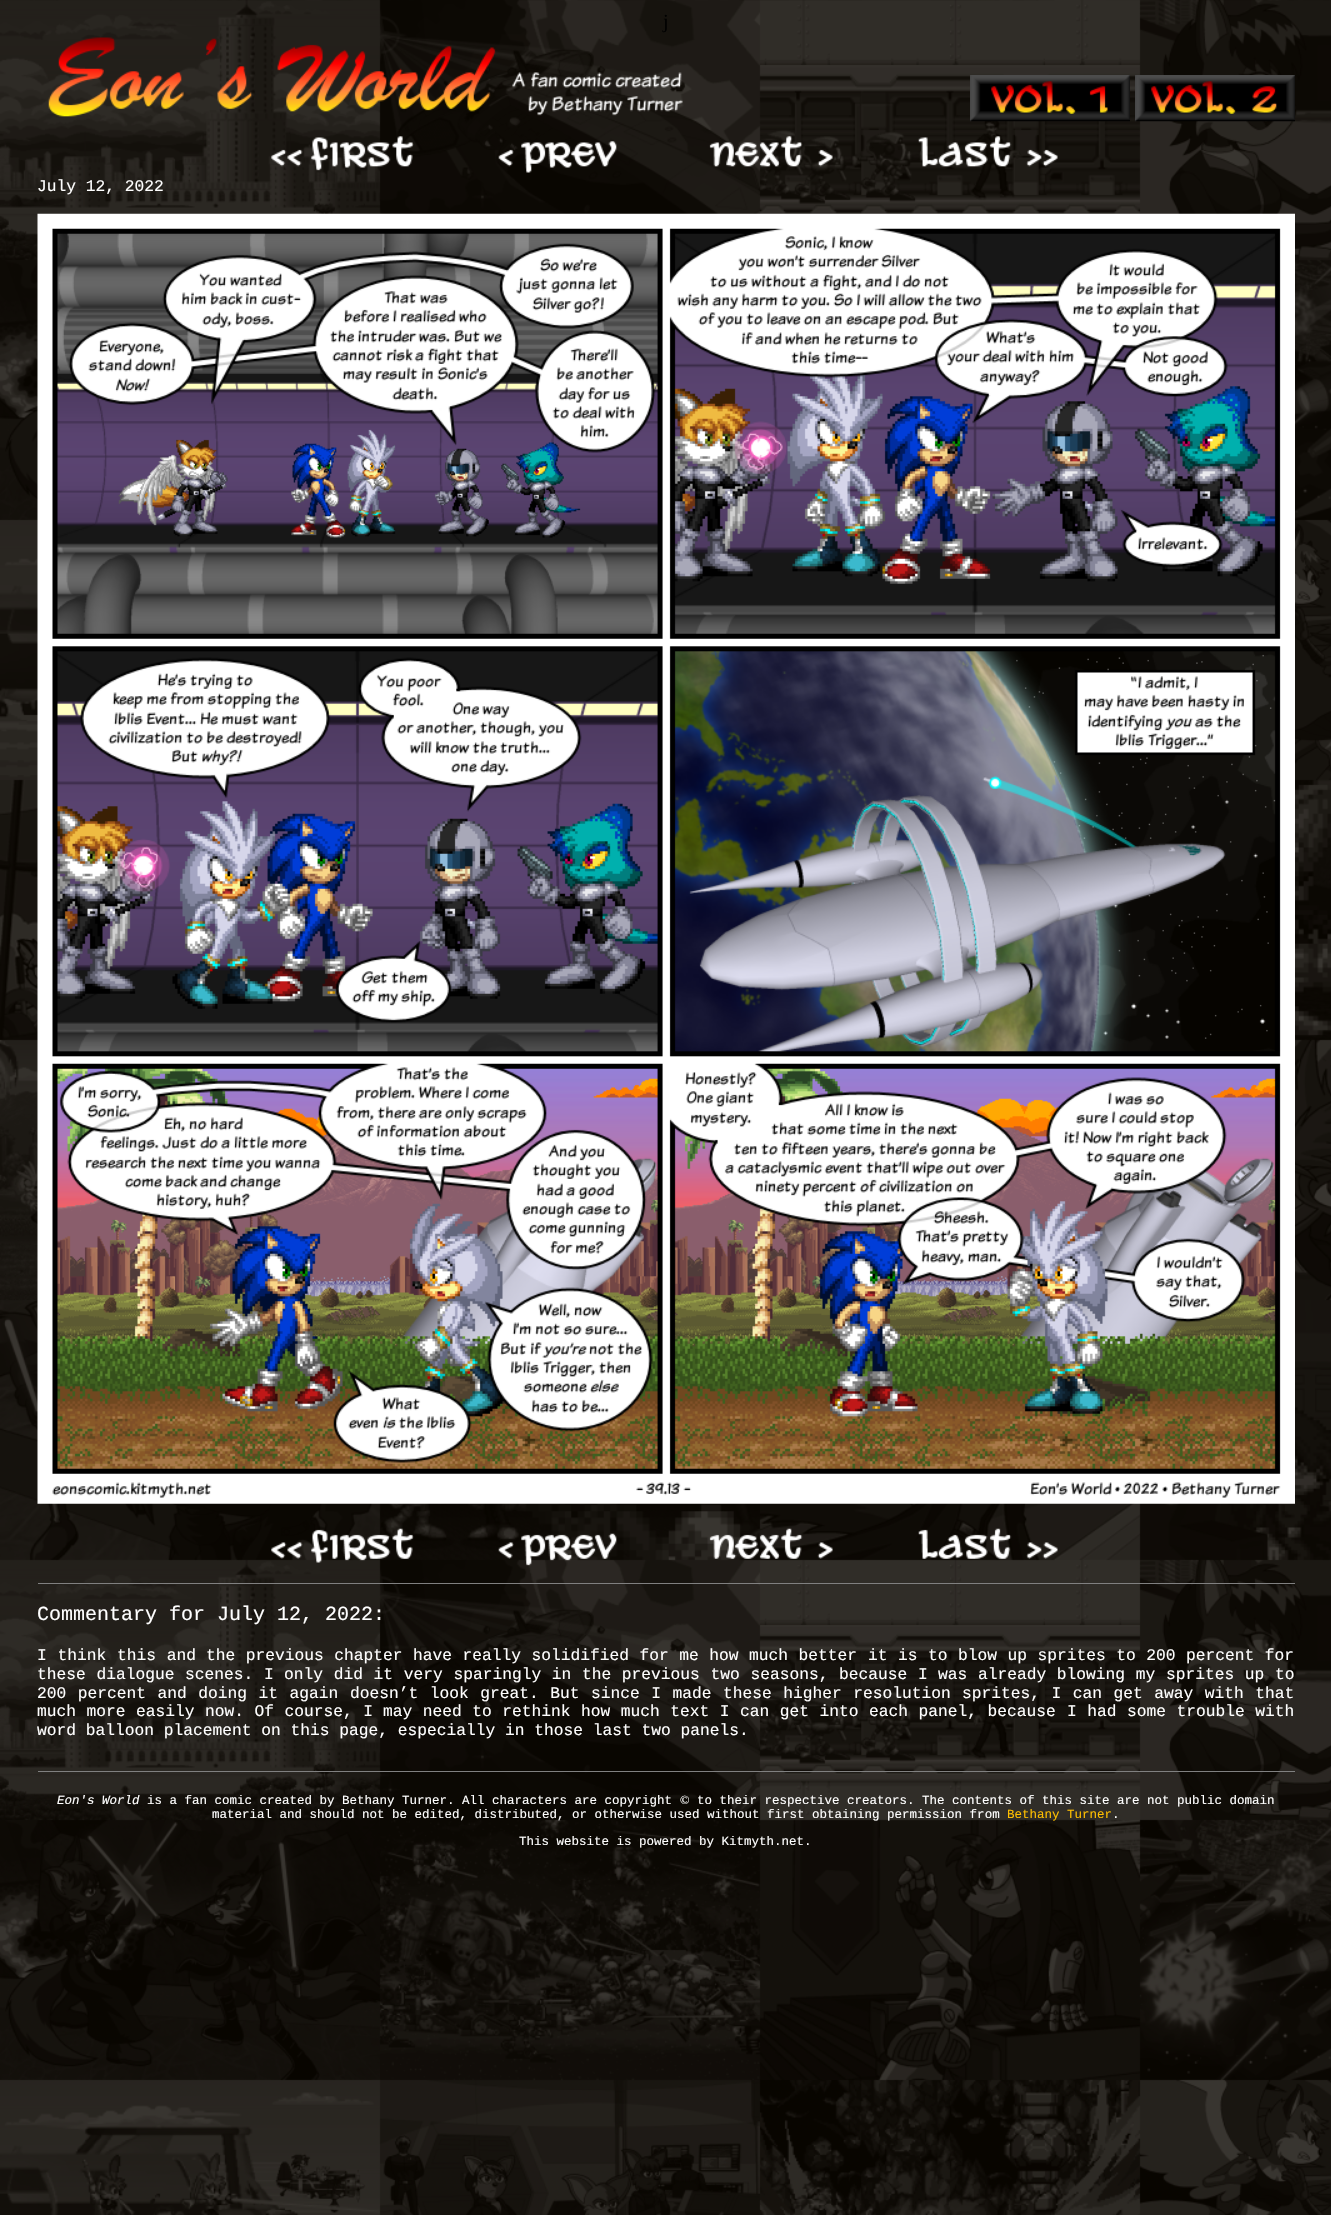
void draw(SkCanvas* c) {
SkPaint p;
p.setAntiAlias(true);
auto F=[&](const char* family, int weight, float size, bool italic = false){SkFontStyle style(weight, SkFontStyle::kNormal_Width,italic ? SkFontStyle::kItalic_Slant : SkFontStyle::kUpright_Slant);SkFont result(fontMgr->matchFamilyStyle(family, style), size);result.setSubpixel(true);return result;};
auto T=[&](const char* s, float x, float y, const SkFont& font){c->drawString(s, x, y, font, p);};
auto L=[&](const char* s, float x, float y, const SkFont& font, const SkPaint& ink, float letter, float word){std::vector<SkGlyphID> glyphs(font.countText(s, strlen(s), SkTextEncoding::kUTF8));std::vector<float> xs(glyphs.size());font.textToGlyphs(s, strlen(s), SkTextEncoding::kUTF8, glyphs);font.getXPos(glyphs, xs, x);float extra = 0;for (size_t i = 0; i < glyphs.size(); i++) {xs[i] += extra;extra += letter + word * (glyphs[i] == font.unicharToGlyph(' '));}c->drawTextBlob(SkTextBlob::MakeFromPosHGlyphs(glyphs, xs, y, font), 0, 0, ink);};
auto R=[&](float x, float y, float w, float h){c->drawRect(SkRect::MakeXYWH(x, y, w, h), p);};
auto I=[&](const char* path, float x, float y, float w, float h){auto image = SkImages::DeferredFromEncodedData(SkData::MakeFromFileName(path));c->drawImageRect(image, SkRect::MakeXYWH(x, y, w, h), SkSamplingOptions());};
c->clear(0xffffffff);
I("1.png",0,0,1331,2215);
auto f1 = F("Liberation Serif",400,20);
p.setColor(0xff000000);
T("j",663,28,f1);
I("2.png",48,37,448,80);
I("3.png",512,72,171,44);
I("4.png",970,75,160,47);
I("5.png",1135,75,160,47);
I("6.png",271,136,143,35);
I("7.png",498,141,119,32);
I("8.png",709,136,124,31);
I("9.png",918,136,140,31);
auto f2 = F("Liberation Mono",400,16.25);
p.setColor(0xffffffff);
T("July 12, 2022",37,191,f2);
I("10.png",37,213,1258,1291);
I("11.png",271,1528,143,35);
I("12.png",498,1533,119,33);
I("13.png",709,1528,124,31);
I("14.png",918,1528,140,31);
p.setColor(0xff808080);
R(38,1583,1257,1);
auto f3 = F("Liberation Mono",400,20);
p.setColor(0xffffffff);
T("Commentary for July 12, 2022:",37,1620,f3);
L("I think this and",37,1660,f2,p,0,1);
L("the previous chapter have really solidified for me how much better",206,1660,f2,p,0,.75);
L("it is to blow up sprites to 200 percent for",868,1660,f2,p,0,.75);
L("these dialogue scenes. I",37,1679,f2,p,0,.9);
L("only did it very sparingly in the previous two seasons, because I",284,1679,f2,p,0,.9);
L("was already blowing my sprites up to",938,1679,f2,p,0,.9);
L("200 percent and doing it again",37,1698,f2,p,0,1.75);
L("doesn’t look great. But since I made these higher resolution",350,1698,f2,p,0,1.75);
L("sprites, I can get away with that",962,1698,f2,p,0,1.75);
L("much more easily now. Of course, I",37,1716,f2,p,0,.75);
L("may need to rethink how much text I can get into each panel, because",383,1716,f2,p,0,.75);
L("I had some trouble with",1067,1716,f2,p,0,.75);
T("word balloon placement on this page, especially in those last two panels.",37,1735,f2);
p.setColor(0xff808080);
R(38,1771,1257,1);
auto f4 = F("Liberation Mono",400,12.5,true);
p.setColor(0xffffffff);
T("Eon's World",57,1804,f4);
auto f5 = F("Liberation Mono",400,12.5);
T("is a fan comic created by Bethany Turner. All characters are copyright",147,1804,f5);
auto f6 = F("Liberation Serif",400,12.5);
T("©",680,1804,f6);
T("to their respective creators. The contents of this site are not public domain",697,1804,f5);
T("material and should not be edited, distributed, or otherwise used without first obtaining permission from",212,1818,f5);
p.setColor(0xffffbf00);
T("Bethany Turner",1007,1818,f5);
p.setColor(0xffffffff);
T(".",1112,1818,f5);
T("This website is powered by Kitmyth.net.",519,1845,f5);
}
